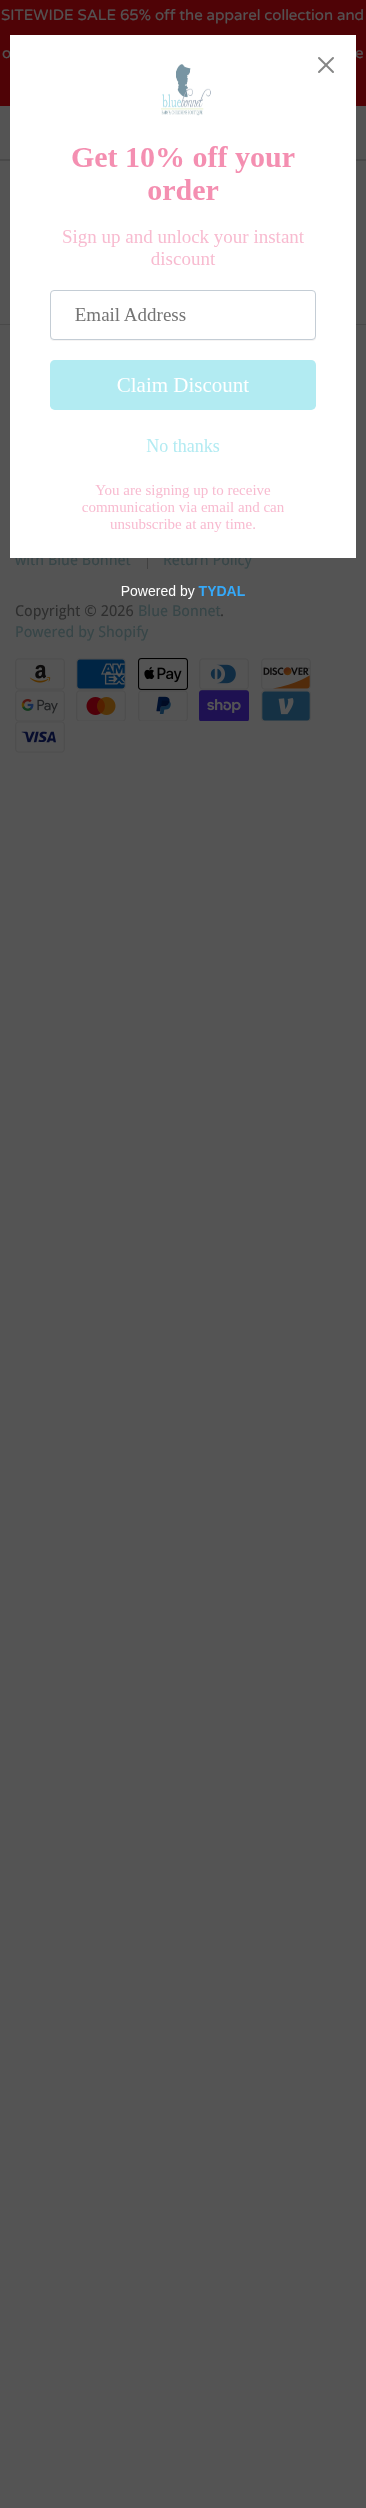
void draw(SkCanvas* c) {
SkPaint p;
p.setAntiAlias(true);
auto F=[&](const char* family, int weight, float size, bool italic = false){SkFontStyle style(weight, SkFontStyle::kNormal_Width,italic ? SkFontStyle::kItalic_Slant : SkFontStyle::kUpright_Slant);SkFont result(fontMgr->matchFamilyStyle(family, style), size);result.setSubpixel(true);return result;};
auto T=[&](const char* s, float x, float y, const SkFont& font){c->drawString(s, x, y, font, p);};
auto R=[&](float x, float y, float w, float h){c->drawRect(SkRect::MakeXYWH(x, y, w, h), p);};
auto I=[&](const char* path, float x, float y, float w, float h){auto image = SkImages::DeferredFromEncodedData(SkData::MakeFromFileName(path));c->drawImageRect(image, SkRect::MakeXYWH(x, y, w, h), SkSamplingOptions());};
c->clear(0xffffffff);
p.setColor(0xffef0911);
R(0,0,366,106);
auto f1 = F("Varela Round",400,15);
p.setColor(0xfffdf9fa);
T("SITEWIDE SALE 65% off the apparel collection and",1,20,f1);
T("o",2,58,f1);
T("e",355,58,f1);
p.setColor(0xffdddddd);
R(0,159,366,2);
R(0,324,366,1);
auto f2 = F("Droid Sans",400,15);
p.setColor(0xffa5d2d8);
T("with Blue Bonnet",15,565,f2);
T("Return Policy",163,565,f2);
p.setColor(0xffc5c5c5);
R(147,551,1,18);
p.setColor(0xff8b8c8c);
T("Copyright © 2026",15,616,f2);
p.setColor(0xffa5d2d8);
T("Blue Bonnet",138,616,f2);
p.setColor(0xff8b8c8c);
T(".",220,616,f2);
p.setColor(0xffa5d2d8);
T("Powered by Shopify",15,637,f2);
I("2.png",15,658,50,32);
I("3.png",76,658,50,32);
I("4.png",138,658,50,32);
I("5.png",199,658,50,32);
I("6.png",261,658,50,32);
I("7.png",15,690,50,31);
I("8.png",76,690,50,31);
I("9.png",138,690,50,31);
I("10.png",199,690,50,31);
I("11.png",261,690,50,31);
I("12.png",15,721,50,32);
I("1.png",0,0,366,2508);
}
